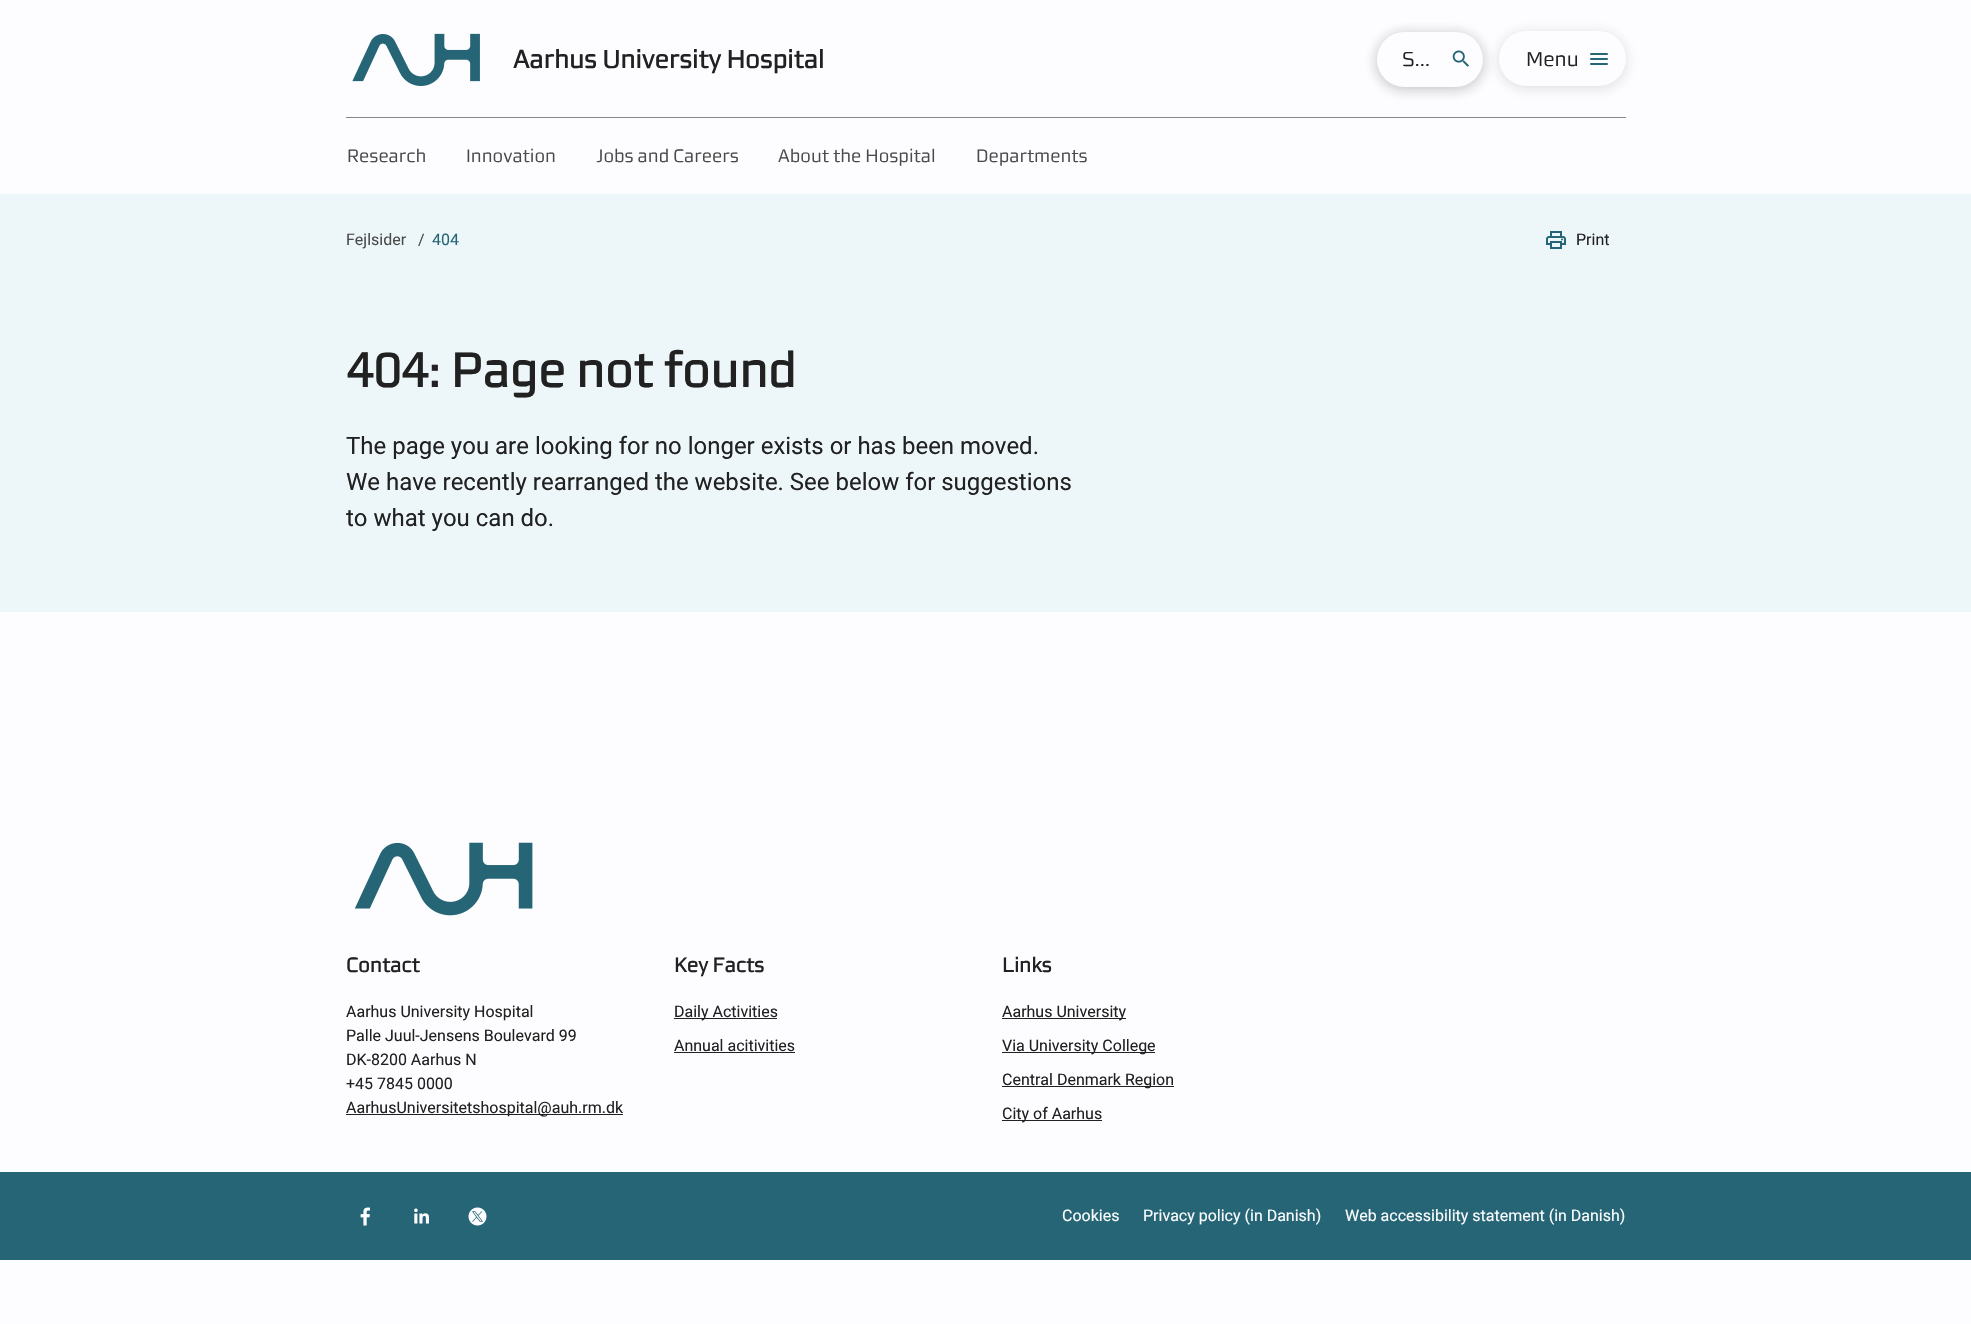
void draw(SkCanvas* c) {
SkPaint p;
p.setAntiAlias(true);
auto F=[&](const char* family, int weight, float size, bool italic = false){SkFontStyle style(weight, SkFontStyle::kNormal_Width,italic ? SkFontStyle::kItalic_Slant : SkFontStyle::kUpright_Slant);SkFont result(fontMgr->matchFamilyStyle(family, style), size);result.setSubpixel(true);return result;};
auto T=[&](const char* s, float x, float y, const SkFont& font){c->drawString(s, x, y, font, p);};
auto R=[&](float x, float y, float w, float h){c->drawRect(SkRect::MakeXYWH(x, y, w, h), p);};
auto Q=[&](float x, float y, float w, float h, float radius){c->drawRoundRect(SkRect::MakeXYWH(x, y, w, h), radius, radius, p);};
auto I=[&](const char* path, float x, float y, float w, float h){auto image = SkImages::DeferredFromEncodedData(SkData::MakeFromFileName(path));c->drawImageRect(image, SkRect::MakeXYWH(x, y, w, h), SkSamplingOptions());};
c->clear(0xfffdfdff);
p.setColor(0xff878787);
R(346,117,1280,1);
I("1.png",352,33,128,53);
auto f1 = F("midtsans",700,25);
p.setColor(0xff212121);
T("Aarhus University Hospital",513,68,f1);
p.setColor(0x26212121);
p.setMaskFilter(SkMaskFilter::MakeBlur(kNormal_SkBlurStyle, 7));
c->drawRoundRect(SkRect::MakeXYWH(1377,34,106,55),27.5,27.5,p);
p.setMaskFilter(nullptr);
p.setMaskFilter(SkMaskFilter::MakeBlur(kNormal_SkBlurStyle, 7));
c->drawRoundRect(SkRect::MakeXYWH(1377,34,106,55),27.5,27.5,p);
p.setMaskFilter(nullptr);
p.setColor(0xfffdfdff);
Q(1377,32,106,55,27.5);
auto f2 = F("midtsans",400,20);
p.setColor(0xff212121);
T("S…",1402,66,f2);
I("2.png",1452,50,17,17);
p.setColor(0x26212121);
p.setMaskFilter(SkMaskFilter::MakeBlur(kNormal_SkBlurStyle, 7));
c->drawRoundRect(SkRect::MakeXYWH(1499,33,127,55),27.5,27.5,p);
p.setMaskFilter(nullptr);
p.setColor(0xfffdfdff);
Q(1499,31,127,55,27.5);
p.setColor(0xff212121);
T("Menu",1526,66,f2);
p.setColor(0xff256575);
Q(1590,53,18,2,1);
Q(1590,58,18,2,1);
Q(1590,63,18,2,1);
auto f3 = F("midtsans",400,18);
p.setColor(0xff4a4a4a);
T("Research",347,162,f3);
T("Innovation",466,162,f3);
T("Jobs and Careers",596,162,f3);
T("About the Hospital",778,162,f3);
T("Departments",976,162,f3);
p.setColor(0xffedf7fa);
R(0,194,1971,418);
auto f4 = F("Roboto",400,16);
p.setColor(0xff4a4a4a);
T("Fejlsider",346,245,f4);
T("/",418,245,f4);
p.setColor(0xff256575);
T("404",432,245,f4);
I("3.png",1546,231,20,18);
p.setColor(0xff212121);
T("Print",1576,245,f4);
auto f5 = F("midtsans",700,48);
T("404: Page not found",346,387,f5);
auto f6 = F("Roboto",400,24);
T("The page you are looking for no longer exists or has been moved.",346,454,f6);
T("We have recently rearranged the website. See below for suggestions",346,490,f6);
T("to what you can do.",346,526,f6);
I("4.png",354,842,179,74);
auto f7 = F("midtsans",700,20);
T("Contact",346,972,f7);
T("Aarhus University Hospital",346,1017,f4);
T("Palle Juul-Jensens Boulevard 99",346,1041,f4);
T("DK-8200 Aarhus N",346,1065,f4);
T("+45 7845 0000",346,1089,f4);
R(346,1114,277,1);
T("AarhusUniversitetshospital@auh.rm.dk",346,1113,f4);
T("Key Facts",674,972,f7);
R(674,1018,103,1);
T("Daily Activities",674,1017,f4);
T("Annual acitivities",674,1051,f4);
R(674,1052,121,1);
T("Links",1002,972,f7);
R(1002,1018,124,1);
T("Aarhus University",1002,1017,f4);
R(1002,1052,153,1);
T("Via University College",1002,1051,f4);
R(1002,1086,172,1);
T("Central Denmark Region",1002,1085,f4);
R(1002,1120,100,1);
T("City of Aarhus",1002,1119,f4);
p.setColor(0xff256575);
R(0,1172,1971,88);
I("5.png",360,1207,10,19);
I("6.png",414,1208,15,16);
I("7.png",468,1207,19,19);
p.setColor(0xfffdfdff);
T("Cookies",1062,1221,f4);
T("Privacy policy (in Danish)",1143,1221,f4);
T("Web accessibility statement (in Danish)",1345,1221,f4);
}
